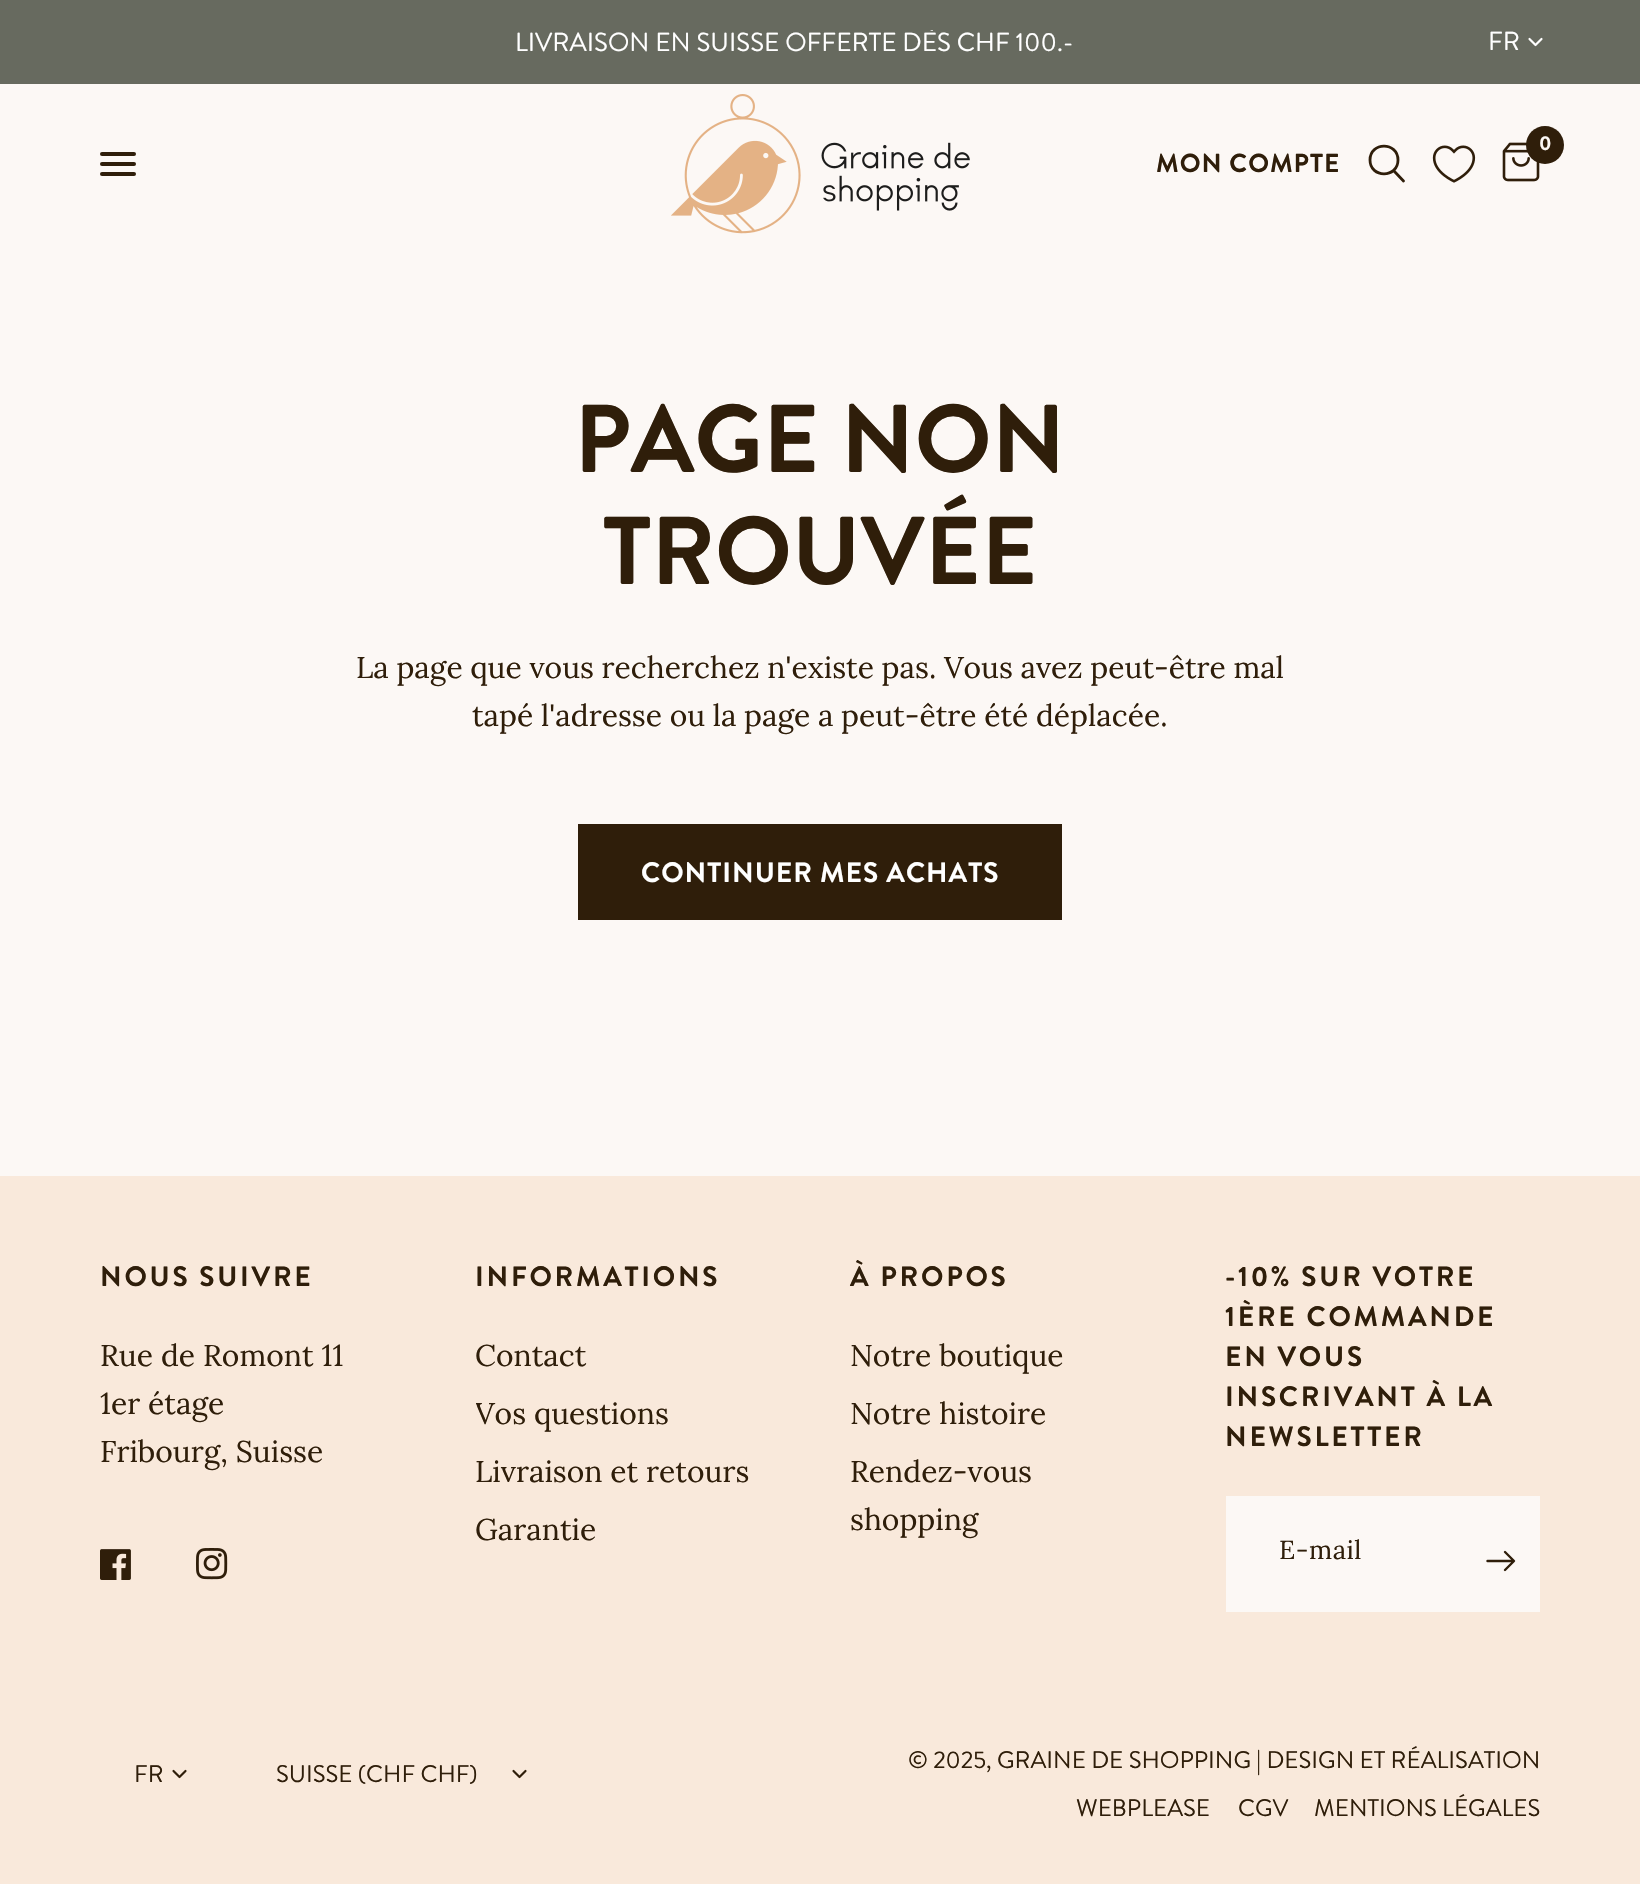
void draw(SkCanvas* c) {
SkPaint p;
p.setAntiAlias(true);
auto F=[&](const char* family, int weight, float size, bool italic = false){SkFontStyle style(weight, SkFontStyle::kNormal_Width,italic ? SkFontStyle::kItalic_Slant : SkFontStyle::kUpright_Slant);SkFont result(fontMgr->matchFamilyStyle(family, style), size);result.setSubpixel(true);return result;};
auto T=[&](const char* s, float x, float y, const SkFont& font){c->drawString(s, x, y, font, p);};
auto L=[&](const char* s, float x, float y, const SkFont& font, const SkPaint& ink, float letter, float word){std::vector<SkGlyphID> glyphs(font.countText(s, strlen(s), SkTextEncoding::kUTF8));std::vector<float> xs(glyphs.size());font.textToGlyphs(s, strlen(s), SkTextEncoding::kUTF8, glyphs);font.getXPos(glyphs, xs, x);float extra = 0;for (size_t i = 0; i < glyphs.size(); i++) {xs[i] += extra;extra += letter + word * (glyphs[i] == font.unicharToGlyph(' '));}c->drawTextBlob(SkTextBlob::MakeFromPosHGlyphs(glyphs, xs, y, font), 0, 0, ink);};
auto R=[&](float x, float y, float w, float h){c->drawRect(SkRect::MakeXYWH(x, y, w, h), p);};
auto Q=[&](float x, float y, float w, float h, float radius){c->drawRoundRect(SkRect::MakeXYWH(x, y, w, h), radius, radius, p);};
auto I=[&](const char* path, float x, float y, float w, float h){auto image = SkImages::DeferredFromEncodedData(SkData::MakeFromFileName(path));c->drawImageRect(image, SkRect::MakeXYWH(x, y, w, h), SkSamplingOptions());};
auto P=[&](const char* data, bool evenOdd = false){SkPath result = *SkParsePath::FromSVGString(data);if (evenOdd) result.setFillType(SkPathFillType::kEvenOdd);return result;};
c->clear(0xfffcf8f5);
p.setColor(0xff676a5f);
R(0,0,1640,84);
c->save();
c->clipRect(SkRect::MakeXYWH(294,30,1000,26));
auto f1 = F("Brandon Grotesque",400,26);
p.setColor(0xffffffff);
T("LIVRAISON EN SUISSE OFFERTE DÈS CHF 100.-",515,51,f1);
c->restore();
T("FR",1488,50,f1);
p.setStroke(true);
p.setStrokeWidth(2.2);
p.setStrokeCap(SkPaint::kRound_Cap);
p.setStrokeJoin(SkPaint::kRound_Join);
c->drawPath(P("M1541.5 39l-6 6l-6-6"),p);
p.setStroke(false);
p.setColor(0xff2f1e0a);
Q(100,152,36,4,2);
Q(100,162,36,4,2);
Q(100,172,36,4,2);
I("1.png",671,94,299,140);
auto f2 = F("Brandon Grotesque",700,26);
L("MON COMPTE",1156,172,f2,p,1,0);
p.setStroke(true);
p.setStrokeWidth(2.8);
c->drawPath(P("M1394 171l9.5 10m-5.5-21c0 18.5-28 18.5-28 0c0-18.5 28-18.5 28 0z"),p);
I("2.png",1432,145,44,38);
I("3.png",1502,142,38,40);
p.setStroke(false);
c->drawCircle(1545,145,19,p);
auto f3 = F("Brandon Grotesque",700,20);
p.setColor(0xfffcf8f5);
T("0",1539,150,f3);
auto f4 = F("Brandon Grotesque",700,96);
p.setColor(0xff2f1e0a);
T("PAGE NON",574,472,f4);
T("TROUVÉE",603,584,f4);
auto f5 = F("Lora",400,30);
L("La page que vous recherchez n'existe pas. Vous avez peut-être mal",356,678,f5,p,0,-.25);
L("tapé l'adresse ou la page a peut-être été déplacée.",472,726,f5,p,0,-.25);
R(578,824,484,96);
auto f6 = F("Brandon Grotesque",700,28);
p.setColor(0xffffffff);
L("CONTINUER MES ACHATS",641,882,f6,p,1,0);
p.setColor(0xfff9e9db);
R(0,1176,1640,708);
p.setColor(0xff2f1e0a);
L("NOUS SUIVRE",100,1286,f6,p,2.75,0);
T("Rue de Romont 11",100,1366,f5);
T("1er étage",100,1414,f5);
T("Fribourg, Suisse",100,1462,f5);
I("4.png",100,1549,31,31);
I("5.png",196,1548,32,32);
L("INFORMATIONS",475,1286,f6,p,2.75,0);
T("Contact",475,1366,f5);
c->save();
c->clipRect(SkRect::MakeXYWH(476,1336,314,222));
T("Vos questions",475,1424,f5);
c->restore();
T("Livraison et retours",475,1482,f5);
T("Garantie",475,1540,f5);
L("À PROPOS",850,1286,f6,p,2.75,0);
T("Notre boutique",850,1366,f5);
T("Notre histoire",850,1424,f5);
T("Rendez-vous",850,1482,f5);
T("shopping",850,1530,f5);
L("-10% SUR VOTRE",1225,1286,f6,p,2.75,0);
L("1ÈRE COMMANDE",1225,1326,f6,p,2.75,0);
L("EN VOUS",1225,1366,f6,p,2.75,0);
L("INSCRIVANT À LA",1225,1406,f6,p,2.75,0);
L("NEWSLETTER",1225,1446,f6,p,2.75,0);
p.setColor(0xfffcf8f5);
R(1226,1496,314,116);
auto f7 = F("Lora",400,26);
p.setColor(0xff2f1e0a);
L("E-mail",1279,1559,f7,p,.5,0);
p.setStroke(true);
p.setStrokeWidth(2.4);
c->drawPath(P("M1487.5 1561h24m-6.5-9l9 9l-9 9"),p);
auto f8 = F("Brandon Grotesque",400,24);
p.setStroke(false);
T("FR",134,1782,f8);
p.setStroke(true);
p.setStrokeWidth(2.2);
c->drawPath(P("M185.5 1771l-6 6l-6-6"),p);
p.setStroke(false);
T("SUISSE (CHF CHF)",276,1782,f8);
p.setStroke(true);
c->drawPath(P("M525.5 1771l-6 6l-6-6"),p);
p.setStroke(false);
T("© 2025, GRAINE DE SHOPPING | DESIGN ET RÉALISATION",908,1768,f8);
T("WEBPLEASE",1076,1816,f8);
T("CGV",1238,1816,f8);
T("MENTIONS LÉGALES",1314,1816,f8);
}
